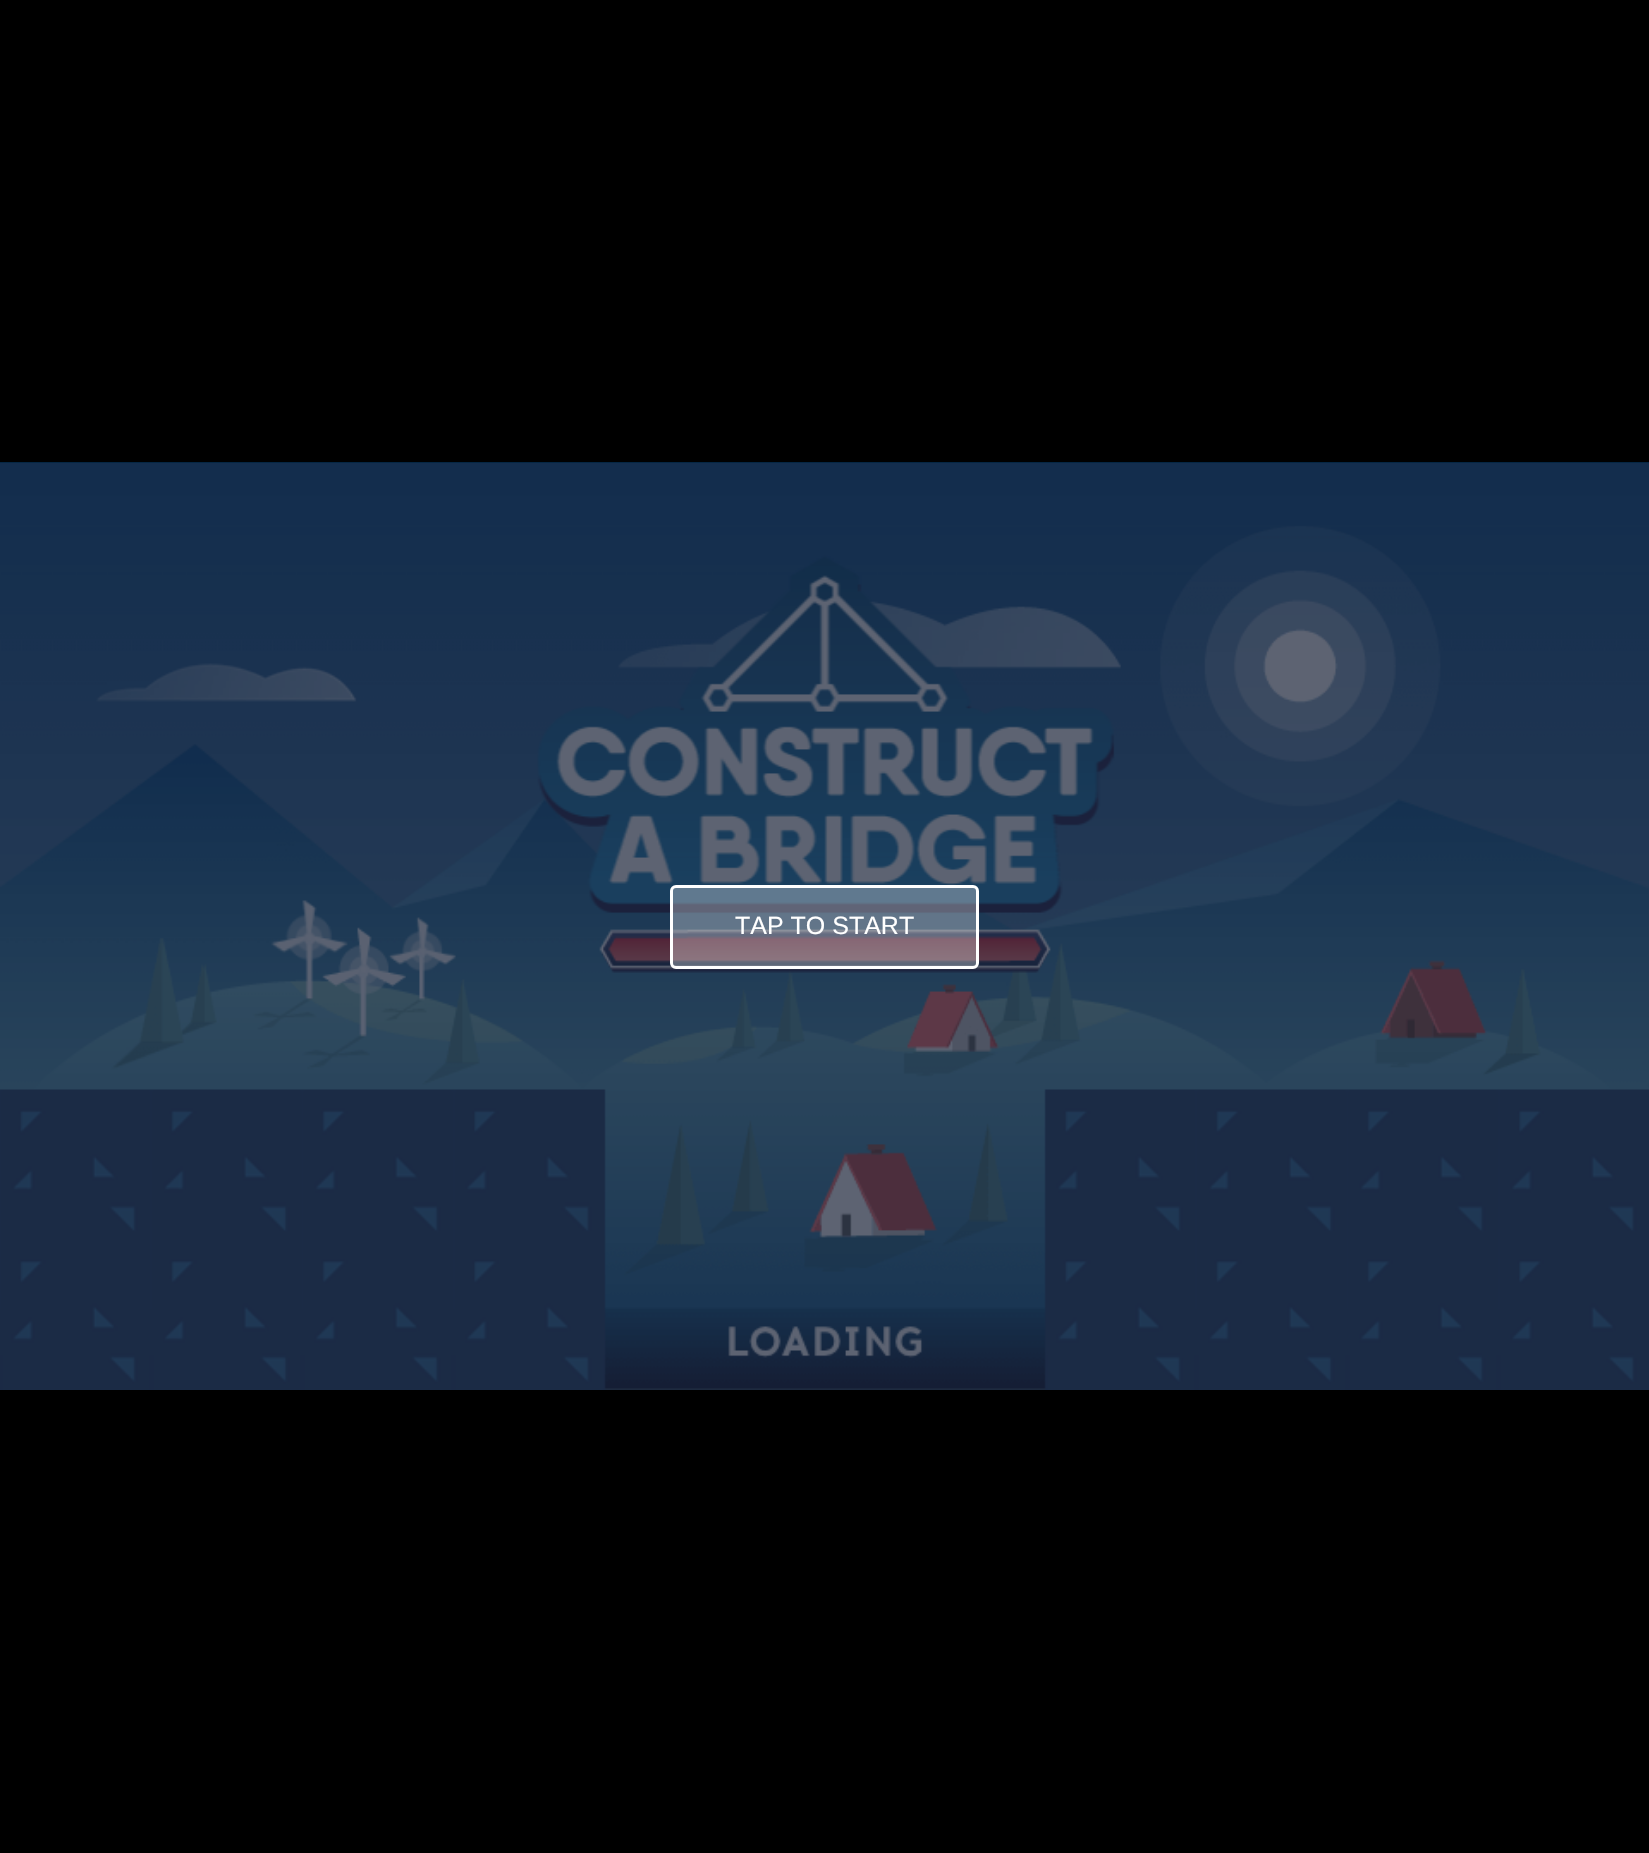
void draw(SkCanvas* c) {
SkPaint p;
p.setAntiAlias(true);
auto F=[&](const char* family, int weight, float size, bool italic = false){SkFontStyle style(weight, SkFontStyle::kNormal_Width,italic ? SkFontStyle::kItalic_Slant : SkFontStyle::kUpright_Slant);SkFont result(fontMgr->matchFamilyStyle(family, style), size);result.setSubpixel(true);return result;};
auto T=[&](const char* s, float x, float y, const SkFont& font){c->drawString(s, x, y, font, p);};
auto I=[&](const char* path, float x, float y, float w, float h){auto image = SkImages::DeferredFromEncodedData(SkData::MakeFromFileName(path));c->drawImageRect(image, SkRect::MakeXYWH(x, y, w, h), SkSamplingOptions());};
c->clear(0xff000000);
I("1.png",0,462,1649,928);
p.setColor(0x4dffffff);
c->drawRoundRect(SkRect::MakeXYWH(671.5,886.5,306,81),4.5,4.5,p);
p.setStroke(true);
p.setStrokeWidth(3);
p.setColor(0xffffffff);
c->drawRoundRect(SkRect::MakeXYWH(671.5,886.5,306,81),4.5,4.5,p);
auto f1 = F("Liberation Sans",400,25);
p.setStroke(false);
T("TAP TO START",735,934,f1);
}
